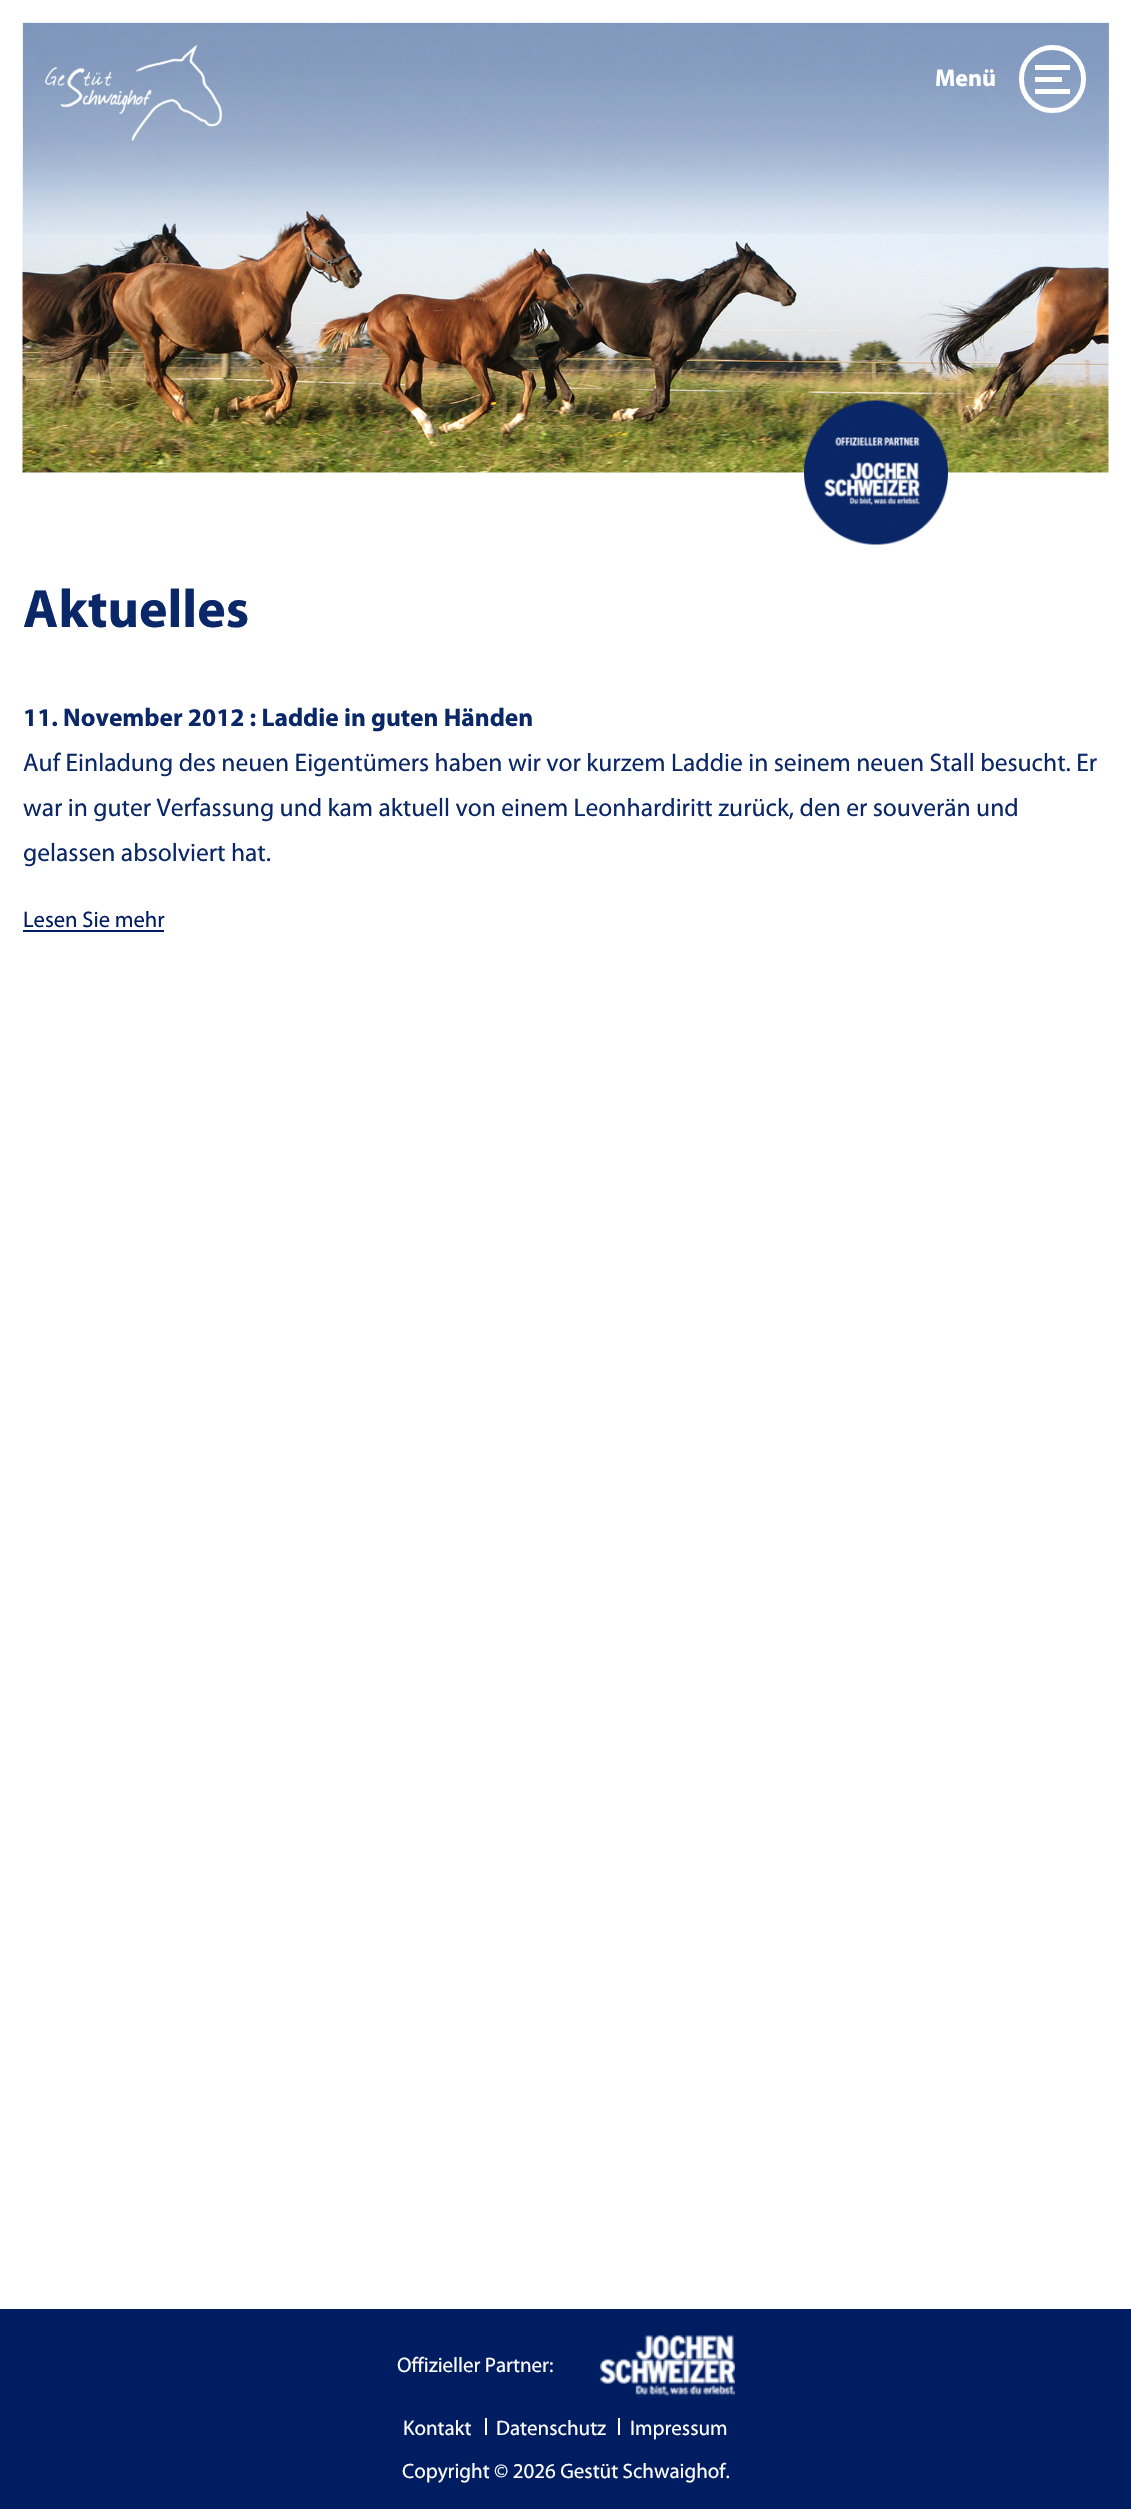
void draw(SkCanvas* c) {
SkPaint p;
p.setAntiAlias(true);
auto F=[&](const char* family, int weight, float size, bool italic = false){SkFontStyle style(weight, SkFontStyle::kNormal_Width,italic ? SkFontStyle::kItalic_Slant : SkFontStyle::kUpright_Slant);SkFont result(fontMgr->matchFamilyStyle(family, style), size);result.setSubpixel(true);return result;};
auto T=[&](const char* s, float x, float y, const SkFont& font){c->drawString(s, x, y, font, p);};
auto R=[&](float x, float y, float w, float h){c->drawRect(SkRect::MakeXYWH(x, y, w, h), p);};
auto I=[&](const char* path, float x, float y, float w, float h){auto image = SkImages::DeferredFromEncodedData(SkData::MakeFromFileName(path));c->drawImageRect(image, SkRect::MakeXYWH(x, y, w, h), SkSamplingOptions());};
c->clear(0xffffffff);
I("2.png",22,22,1087,451);
{
const SkColor colors[] = {0x6b012669,0x66012669,0x4f012669,0x3d012669,0x14012669,0x05012669,0x00012669};
const float stops[] = {0,.21,.51,.63,.83,.94,1};
const SkPoint ends[] = {{566,22}, {566,248}};
p.setShader(SkGradientShader::MakeLinear(ends, colors, stops, 7, SkTileMode::kClamp));
p.setAlpha(255);
}
R(23,23,1086,211);
I("1.png",45,45,177,96);
auto f1 = F("Myriad",700,24);
p.setShader(nullptr);
p.setColor(0xffffffff);
T("Menü",935,86,f1);
p.setStroke(true);
p.setStrokeWidth(5);
c->drawRoundRect(SkRect::MakeXYWH(1021.5,47.5,62,63),31,31,p);
p.setStroke(false);
R(1035,65,35,5);
R(1035,77,27,5);
R(1035,89,35,5);
I("3.png",804,400,144,145);
auto f2 = F("Myriad",700,54);
p.setColor(0xff0a2768);
T("Aktuelles",23,627,f2);
auto f3 = F("Myriad",700,25.5);
T("11. November 2012 : Laddie in guten Händen",23,726,f3);
auto f4 = F("Myriad",400,25.5);
T("Auf Einladung des neuen Eigentümers haben wir vor kurzem Laddie in seinem neuen Stall besucht. Er",23,771,f4);
T("war in guter Verfassung und kam aktuell von einem Leonhardiritt zurück, den er souverän und",23,816,f4);
T("gelassen absolviert hat.",23,861,f4);
auto f5 = F("Myriad",400,22.5);
p.setColor(0xff001d62);
T("Lesen Sie mehr",23,927,f5);
R(23,930,141,2);
R(0,2309,1131,200);
auto f6 = F("Myriad",400,21);
p.setColor(0xffffffff);
T("Offizieller Partner:",397,2372,f6);
I("4.png",600,2335,135,61);
T("Kontakt",403,2435,f6);
R(485,2418,2,17);
T("Datenschutz",496,2435,f6);
R(618,2418,2,17);
T("Impressum",630,2435,f6);
T("Copyright © 2026 Gestüt Schwaighof.",402,2478,f6);
}
